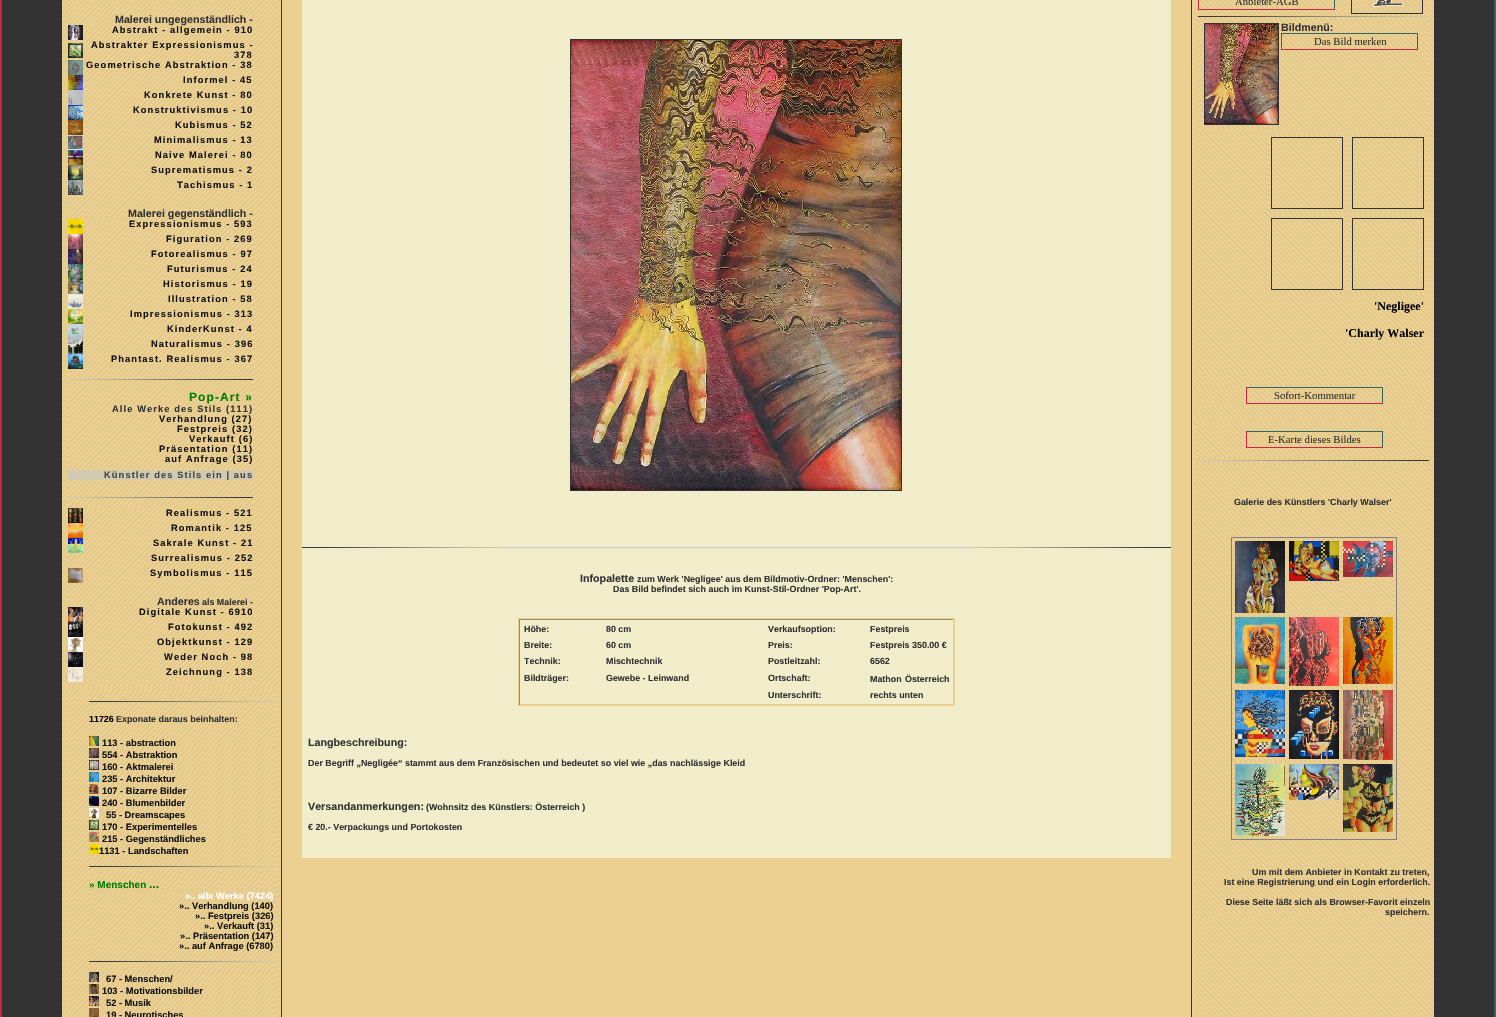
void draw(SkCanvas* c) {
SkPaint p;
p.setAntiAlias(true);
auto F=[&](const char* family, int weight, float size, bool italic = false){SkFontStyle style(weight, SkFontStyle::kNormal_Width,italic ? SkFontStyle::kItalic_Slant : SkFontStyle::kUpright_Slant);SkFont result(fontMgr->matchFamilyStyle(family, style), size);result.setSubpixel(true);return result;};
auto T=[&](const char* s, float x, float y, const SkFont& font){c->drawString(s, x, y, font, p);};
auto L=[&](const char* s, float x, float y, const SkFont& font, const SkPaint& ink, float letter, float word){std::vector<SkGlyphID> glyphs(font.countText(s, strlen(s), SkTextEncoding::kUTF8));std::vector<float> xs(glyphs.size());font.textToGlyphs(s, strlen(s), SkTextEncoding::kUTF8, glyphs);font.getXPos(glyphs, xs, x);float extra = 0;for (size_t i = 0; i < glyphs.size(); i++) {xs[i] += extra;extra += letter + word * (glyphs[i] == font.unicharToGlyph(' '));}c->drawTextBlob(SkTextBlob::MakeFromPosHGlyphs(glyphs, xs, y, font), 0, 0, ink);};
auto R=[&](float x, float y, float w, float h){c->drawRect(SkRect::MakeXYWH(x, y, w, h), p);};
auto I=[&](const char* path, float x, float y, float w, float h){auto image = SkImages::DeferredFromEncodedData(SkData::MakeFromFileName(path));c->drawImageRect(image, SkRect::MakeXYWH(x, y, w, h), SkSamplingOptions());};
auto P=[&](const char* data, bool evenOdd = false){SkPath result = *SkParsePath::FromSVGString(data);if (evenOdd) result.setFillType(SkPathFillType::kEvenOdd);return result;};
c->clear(0xffebd092);
p.setColor(0xff336663);
c->drawPath(P("M1496-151v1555l-2-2v-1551z"),p);
p.setColor(0xffc92748);
c->drawPath(P("M0 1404v-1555l2 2v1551z"),p);
p.setColor(0xff333333);
R(2,0,60,1017);
I("1.png",62,0,218,1017);
I("2.png",65,0,212,685);
p.setColor(0xffebd092);
R(68,0,185,1);
I("3.png",69,0,181,1);
I("4.png",68,1,185,24);
I("6.png",83,25,170,15);
auto f1 = F("Liberation Sans",700,10.7);
p.setColor(0xff333333);
T("Malerei ungegenständlich -",115,23,f1);
I("5.png",68,25,15,15);
auto f2 = F("Liberation Sans",700,9.3);
p.setColor(0xff111111);
L("Abstrakt - allgemein - 910",112,33,f2,p,1.1,0);
I("7.png",68,40,15,20);
I("8.png",68,43,15,15);
I("9.png",83,40,170,20);
L("Abstrakter Expressionismus -",91,48,f2,p,1.1,0);
L("378",234,58,f2,p,1.1,0);
I("10.png",68,60,15,15);
I("6.png",83,60,170,15);
L("Geometrische Abstraktion - 38",86,68,f2,p,1.1,0);
I("11.png",68,75,15,15);
I("6.png",83,75,170,15);
L("Informel - 45",183,83,f2,p,1.1,0);
I("12.png",68,90,15,15);
I("6.png",83,90,170,15);
L("Konkrete Kunst - 80",144,98,f2,p,1.1,0);
I("13.png",68,105,15,15);
I("6.png",83,105,170,15);
L("Konstruktivismus - 10",133,113,f2,p,1.1,0);
I("14.png",68,120,15,15);
I("6.png",83,120,170,15);
L("Kubismus - 52",175,128,f2,p,1.1,0);
I("15.png",68,135,15,15);
I("6.png",83,135,170,15);
L("Minimalismus - 13",154,143,f2,p,1.1,0);
I("16.png",68,150,15,15);
I("6.png",83,150,170,15);
L("Naive Malerei - 80",155,158,f2,p,1.1,0);
I("17.png",68,165,15,15);
I("6.png",83,165,170,15);
L("Suprematismus - 2",151,173,f2,p,1.1,0);
I("18.png",68,180,15,15);
I("6.png",83,180,170,15);
L("Tachismus - 1",177,188,f2,p,1.1,0);
I("4.png",68,195,185,24);
I("6.png",83,219,170,15);
p.setColor(0xff333333);
T("Malerei gegenständlich -",128,217,f1);
I("19.png",68,219,15,15);
p.setColor(0xff111111);
L("Expressionismus - 593",129,227,f2,p,1.1,0);
I("20.png",68,234,15,15);
I("6.png",83,234,170,15);
L("Figuration - 269",166,242,f2,p,1.1,0);
I("21.png",68,249,15,15);
I("6.png",83,249,170,15);
L("Fotorealismus - 97",151,257,f2,p,1.1,0);
I("22.png",68,264,15,15);
I("6.png",83,264,170,15);
L("Futurismus - 24",167,272,f2,p,1.1,0);
I("23.png",68,279,15,15);
I("6.png",83,279,170,15);
L("Historismus - 19",163,287,f2,p,1.1,0);
I("24.png",68,294,15,15);
I("6.png",83,294,170,15);
L("Illustration - 58",168,302,f2,p,1.1,0);
I("25.png",68,309,15,15);
I("6.png",83,309,170,15);
L("Impressionismus - 313",130,317,f2,p,1.1,0);
I("26.png",68,324,15,15);
I("6.png",83,324,170,15);
L("KinderKunst - 4",167,332,f2,p,1.1,0);
I("27.png",68,339,15,15);
I("6.png",83,339,170,15);
L("Naturalismus - 396",151,347,f2,p,1.1,0);
I("28.png",68,354,15,15);
I("6.png",83,354,170,15);
L("Phantast. Realismus - 367",111,362,f2,p,1.1,0);
I("29.png",68,369,185,139);
I("30.png",68,379,185,1);
auto f3 = F("Liberation Sans",700,12);
p.setColor(0xff008000);
L("Pop-Art »",189,401,f3,p,1.1,0);
p.setColor(0xff333333);
L("Alle Werke des Stils (111)",112,412,f2,p,1.1,0);
p.setColor(0xff111111);
L("Verhandlung (27)",159,422,f2,p,1.1,0);
L("Festpreis (32)",177,432,f2,p,1.1,0);
L("Verkauft (6)",189,442,f2,p,1.1,0);
L("Präsentation (11)",159,452,f2,p,1.1,0);
L("auf Anfrage (35)",165,462,f2,p,1.1,0);
p.setColor(0xffd1cab0);
R(68,470,185,10);
p.setColor(0xff444444);
L("Künstler des Stils ein | aus",104,478,f2,p,1.1,0);
I("30.png",68,497,185,1);
I("31.png",68,508,15,15);
I("6.png",83,508,170,15);
p.setColor(0xff111111);
L("Realismus - 521",166,516,f2,p,1.1,0);
I("32.png",68,523,15,15);
I("6.png",83,523,170,15);
L("Romantik - 125",171,531,f2,p,1.1,0);
I("33.png",68,538,15,15);
I("6.png",83,538,170,15);
L("Sakrale Kunst - 21",153,546,f2,p,1.1,0);
I("34.png",68,553,15,15);
I("6.png",83,553,170,15);
L("Surrealismus - 252",151,561,f2,p,1.1,0);
I("35.png",68,568,15,15);
I("6.png",83,568,170,15);
L("Symbolismus - 115",150,576,f2,p,1.1,0);
I("4.png",68,583,185,24);
p.setColor(0xff333333);
T("Anderes",157,605,f1);
auto f4 = F("Liberation Sans",700,8.9);
T("als Malerei -",202,605,f4);
I("36.png",68,607,15,15);
I("6.png",83,607,170,15);
p.setColor(0xff111111);
L("Digitale Kunst - 6910",139,615,f2,p,1.1,0);
I("37.png",68,622,15,15);
I("6.png",83,622,170,15);
L("Fotokunst - 492",168,630,f2,p,1.1,0);
I("38.png",68,637,15,15);
I("6.png",83,637,170,15);
L("Objektkunst - 129",157,645,f2,p,1.1,0);
I("39.png",68,652,15,15);
I("6.png",83,652,170,15);
L("Weder Noch - 98",164,660,f2,p,1.1,0);
I("40.png",68,667,15,15);
I("6.png",83,667,170,15);
L("Zeichnung - 138",166,675,f2,p,1.1,0);
I("41.png",65,688,212,329);
I("42.png",89,691,185,45);
I("43.png",89,701,185,1);
p.setColor(0xff000000);
T("11726",89,722,f4);
p.setColor(0xff333333);
T("Exponate daraus beinhalten:",116,722,f4);
I("44.png",89,736,185,12);
I("45.png",89,736,10,10);
p.setColor(0xff111111);
T("113 - abstraction",102,746,f2);
I("44.png",89,748,185,12);
I("46.png",89,748,10,10);
T("554 - Abstraktion",102,758,f2);
I("44.png",89,760,185,12);
I("47.png",89,760,10,10);
T("160 - Aktmalerei",102,770,f2);
I("44.png",89,772,185,12);
I("48.png",89,772,10,10);
T("235 - Architektur",102,782,f2);
I("44.png",89,784,185,12);
I("49.png",89,784,10,10);
T("107 - Bizarre Bilder",102,794,f2);
I("44.png",89,796,185,12);
I("50.png",89,796,10,10);
T("240 - Blumenbilder",102,806,f2);
I("44.png",89,808,185,12);
I("51.png",89,808,10,10);
T("55 - Dreamscapes",106,818,f2);
I("44.png",89,820,185,12);
I("52.png",89,820,10,10);
T("170 - Experimentelles",102,830,f2);
I("44.png",89,832,185,12);
I("53.png",89,832,10,10);
T("215 - Gegenständliches",102,842,f2);
I("44.png",89,844,185,12);
I("54.png",89,844,10,10);
T("1131 - Landschaften",99,854,f2);
I("55.png",89,856,185,21);
I("43.png",89,866,185,1);
I("56.png",89,877,185,14);
auto f5 = F("Liberation Sans",700,10);
p.setColor(0xff008000);
T("» Menschen",89,888,f5);
T("...",149,888,f3);
I("57.png",89,891,185,60);
p.setColor(0xffffffff);
T("».. alle Werke (7424)",185,899,f2);
p.setColor(0xff111111);
T("».. Verhandlung (140)",179,909,f2);
T("».. Festpreis (326)",195,919,f2);
T("».. Verkauft (31)",204,929,f2);
T("».. Präsentation (147)",180,939,f2);
T("».. auf Anfrage (6780)",179,949,f2);
I("55.png",89,951,185,21);
I("43.png",89,961,185,1);
I("44.png",89,972,185,12);
I("58.png",89,972,10,10);
T("67 - Menschen/",106,982,f2);
I("44.png",89,984,185,12);
I("59.png",89,984,10,10);
T("103 - Motivationsbilder",102,994,f2);
I("44.png",89,996,185,12);
I("60.png",89,996,10,10);
T("52 - Musik",106,1006,f2);
I("61.png",99,1008,175,9);
I("62.png",89,1008,10,9);
T("19 - Neurotisches",106,1018,f2);
p.setColor(0xff333333);
R(281,0,1,1017);
p.setColor(0xfff1edcb);
R(302,0,869,858);
p.setStroke(true);
p.setStrokeWidth(1);
p.setColor(0xff333333);
c->drawRect(SkRect::MakeXYWH(570.5,39.5,331,451),p);
I("63.png",571,40,330,450);
p.setStroke(false);
p.setColor(0xffcccccc);
R(502,547,469,1);
I("64.png",302,547,200,1);
I("65.png",971,547,200,1);
p.setColor(0xff333333);
T("Infopalette",580,582,f1);
T("zum Werk 'Negligee' aus dem Bildmotiv-Ordner: 'Menschen':",637,582,f4);
T("Das Bild befindet sich auch im Kunst-Stil-Ordner 'Pop-Art'.",613,592,f4);
p.setStroke(true);
p.setColor(0xffebd092);
c->drawRect(SkRect::MakeXYWH(518.5,618.5,436,87),p);
p.setStroke(false);
p.setColor(0xff9d8b61);
R(519,619,435,1);
p.setColor(0xffebd092);
R(953,619,1,86);
R(519,704,435,1);
p.setColor(0xff9d8b61);
R(519,619,1,86);
p.setColor(0xff333333);
T("Höhe:",524,632,f4);
T("80 cm",606,632,f4);
T("Verkaufsoption:",768,632,f4);
T("Festpreis",870,632,f4);
T("Breite:",524,648,f4);
T("60 cm",606,648,f4);
T("Preis:",768,648,f4);
T("Festpreis 350.00 €",870,648,f4);
T("Technik:",524,664,f4);
T("Mischtechnik",606,664,f4);
T("Postleitzahl:",768,664,f4);
T("6562",870,664,f4);
T("Bildträger:",524,681,f4);
T("Gewebe - Leinwand",606,681,f4);
T("Ortschaft:",768,681,f4);
T("Mathon",870,682,f4);
T("Österreich",905,682,f4);
T("Unterschrift:",768,698,f4);
T("rechts unten",870,698,f4);
T("Langbeschreibung:",308,746,f1);
T("Der Begriff „Negligée“ stammt aus dem Französischen und bedeutet so viel wie „das nachlässige Kleid",308,766,f4);
T("Versandanmerkungen:",308,810,f1);
T("(Wohnsitz des Künstlers: Österreich )",426,810,f4);
T("€ 20.- Verpackungs und Portokosten",308,830,f4);
R(1191,0,1,1017);
I("66.png",1194,0,240,1017);
I("67.png",1196,0,236,1017);
I("68.png",1198,10,152,4);
I("69.png",1335,0,15,10);
I("70.png",1199,0,135,9);
p.setColor(0xff336663);
R(1334,0,1,10);
p.setColor(0xffc92748);
R(1198,9,137,1);
R(1198,0,1,10);
auto f6 = F("Liberation Serif",400,10.7);
p.setColor(0xff333333);
T("Anbieter-AGB",1235,5,f6);
I("71.png",1352,0,78,14);
p.setStroke(true);
c->drawRect(SkRect::MakeXYWH(1351.5,-.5,71,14),p);
I("72.png",1373,0,30,7);
I("73.png",1198,16,232,355);
I("74.png",1198,16,230,1);
I("75.png",1200,19,228,110);
c->drawRect(SkRect::MakeXYWH(1204.5,23.5,74,101),p);
I("76.png",1205,24,73,100);
p.setStroke(false);
T("Bildmenü:",1281,31,f1);
I("77.png",1282,34,135,15);
p.setColor(0xff336663);
R(1281,33,137,1);
R(1417,33,1,17);
p.setColor(0xffc92748);
R(1281,49,137,1);
R(1281,33,1,17);
p.setColor(0xff333333);
T("Das Bild merken",1314,45,f6);
I("78.png",1268,134,78,78);
p.setStroke(true);
c->drawRect(SkRect::MakeXYWH(1271.5,137.5,71,71),p);
I("78.png",1349,134,78,78);
c->drawRect(SkRect::MakeXYWH(1352.5,137.5,71,71),p);
I("78.png",1268,215,78,78);
c->drawRect(SkRect::MakeXYWH(1271.5,218.5,71,71),p);
I("78.png",1349,215,78,78);
c->drawRect(SkRect::MakeXYWH(1352.5,218.5,71,71),p);
I("79.png",1268,296,159,72);
auto f7 = F("Liberation Serif",700,12);
p.setStroke(false);
p.setColor(0xff000000);
T("'Negligee'",1374,310,f7);
T("'Charly Walser",1345,337,f7);
I("80.png",1198,372,232,46);
I("81.png",1200,386,228,19);
I("77.png",1247,388,135,15);
p.setColor(0xff336663);
R(1246,387,137,1);
R(1382,387,1,17);
p.setColor(0xffc92748);
R(1246,403,137,1);
R(1246,387,1,17);
p.setColor(0xff333333);
T("Sofort-Kommentar",1274,399,f6);
I("82.png",1197,419,234,39);
I("77.png",1247,432,135,15);
p.setColor(0xff336663);
R(1246,431,137,1);
R(1382,431,1,17);
p.setColor(0xffc92748);
R(1246,447,137,1);
R(1246,431,1,17);
p.setColor(0xff333333);
T("E-Karte dieses Bildes",1268,443,f6);
I("83.png",1198,459,232,3);
I("84.png",1199,460,230,1);
I("85.png",1198,463,232,455);
I("86.png",1230,466,168,375);
I("87.png",1231,467,166,70);
I("88.png",1233,469,162,66);
T("Galerie des Künstlers 'Charly Walser'",1234,505,f4);
I("89.png",1232,538,164,301);
p.setStroke(true);
p.setColor(0xff808080);
c->drawRect(SkRect::MakeXYWH(1231.5,537.5,165,302),p);
I("90.png",1234,540,52,74);
I("91.png",1235,541,50,72);
I("90.png",1288,540,52,74);
I("92.png",1289,541,50,40);
I("90.png",1342,540,52,74);
I("93.png",1343,541,50,36);
I("94.png",1234,616,52,71);
I("95.png",1235,617,50,67);
I("94.png",1288,616,52,71);
I("96.png",1289,617,50,69);
I("94.png",1342,616,52,71);
I("97.png",1343,617,50,67);
I("98.png",1234,689,52,72);
I("99.png",1235,690,50,67);
I("98.png",1288,689,52,72);
I("100.png",1289,690,50,69);
I("98.png",1342,689,52,72);
I("101.png",1343,690,50,70);
I("90.png",1234,763,52,74);
I("102.png",1235,764,50,72);
I("90.png",1288,763,52,74);
I("103.png",1289,764,50,36);
I("90.png",1342,763,52,74);
I("104.png",1343,764,50,68);
p.setStroke(false);
p.setColor(0xff333333);
T("Um mit dem Anbieter in Kontakt zu treten,",1252,875,f4);
T("Ist eine Registrierung und ein Login erforderlich.",1224,885,f4);
T("Diese Seite läßt sich als Browser-Favorit einzeln",1226,905,f4);
T("speichern.",1385,915,f4);
R(1434,0,60,1017);
}
